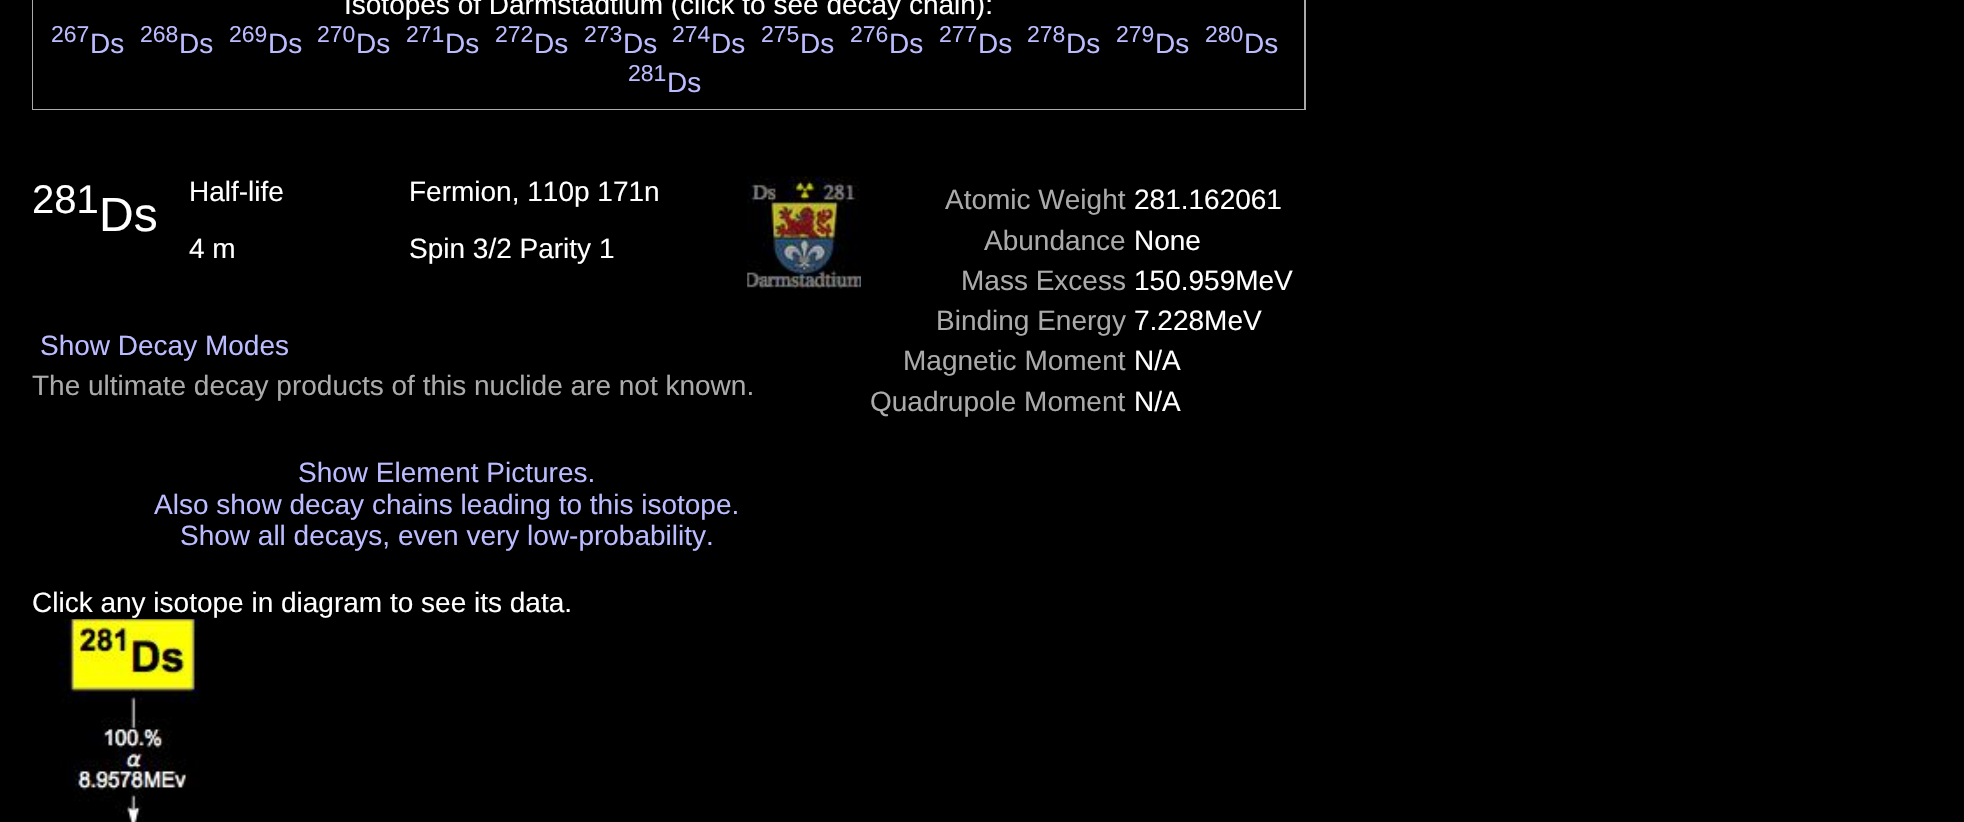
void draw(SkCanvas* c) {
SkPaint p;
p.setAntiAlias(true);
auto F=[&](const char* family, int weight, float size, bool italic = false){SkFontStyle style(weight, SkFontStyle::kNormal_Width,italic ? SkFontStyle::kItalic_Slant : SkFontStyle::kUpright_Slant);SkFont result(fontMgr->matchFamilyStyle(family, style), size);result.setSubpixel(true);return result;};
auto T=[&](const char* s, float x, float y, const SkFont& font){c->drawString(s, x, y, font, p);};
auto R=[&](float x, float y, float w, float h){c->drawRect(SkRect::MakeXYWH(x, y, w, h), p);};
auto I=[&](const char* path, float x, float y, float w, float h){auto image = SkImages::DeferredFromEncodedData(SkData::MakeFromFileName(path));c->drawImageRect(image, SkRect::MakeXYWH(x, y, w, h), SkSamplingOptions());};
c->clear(0xff000000);
p.setColor(0xffaaaaaa);
R(32,0,1274,110);
p.setColor(0xff000000);
R(33,0,1271,109);
auto f1 = F("Liberation Sans",400,28);
p.setColor(0xffffffff);
T("Isotopes of Darmstadtium (click to see decay chain):",344,14,f1);
auto f2 = F("Liberation Sans",400,23);
p.setColor(0xffbbbbff);
T("267",51,42,f2);
T("Ds",90,53,f1);
T("268",140,42,f2);
T("Ds",179,53,f1);
T("269",229,42,f2);
T("Ds",268,53,f1);
T("270",317,42,f2);
T("Ds",356,53,f1);
T("271",406,42,f2);
T("Ds",445,53,f1);
T("272",495,42,f2);
T("Ds",534,53,f1);
T("273",584,42,f2);
T("Ds",623,53,f1);
T("274",672,42,f2);
T("Ds",711,53,f1);
T("275",761,42,f2);
T("Ds",800,53,f1);
T("276",850,42,f2);
T("Ds",889,53,f1);
T("277",939,42,f2);
T("Ds",978,53,f1);
T("278",1027,42,f2);
T("Ds",1066,53,f1);
T("279",1116,42,f2);
T("Ds",1155,53,f1);
T("280",1205,42,f2);
T("Ds",1244,53,f1);
T("281",628,81,f2);
T("Ds",667,92,f1);
auto f3 = F("Liberation Sans",400,40);
p.setColor(0xffffffff);
T("281",32,213,f3);
auto f4 = F("Liberation Sans",400,48);
T("Ds",99,231,f4);
T("Half-life",189,201,f1);
T("Fermion, 110p 171n",409,201,f1);
I("1.png",747,176,114,113);
T("4 m",189,258,f1);
T("Spin 3/2 Parity 1",409,258,f1);
p.setColor(0xffbbbbff);
T("Show Decay Modes",40,355,f1);
p.setColor(0xffaaaaaa);
T("The ultimate decay products of this nuclide are not known.",32,395,f1);
T("Atomic Weight",945,209,f1);
p.setColor(0xffffffff);
T("281.162061",1134,209,f1);
p.setColor(0xffaaaaaa);
T("Abundance",984,250,f1);
p.setColor(0xffffffff);
T("None",1134,250,f1);
p.setColor(0xffaaaaaa);
T("Mass Excess",961,290,f1);
p.setColor(0xffffffff);
T("150.959MeV",1134,290,f1);
p.setColor(0xffaaaaaa);
T("Binding Energy",936,330,f1);
p.setColor(0xffffffff);
T("7.228MeV",1134,330,f1);
p.setColor(0xffaaaaaa);
T("Magnetic Moment",903,370,f1);
p.setColor(0xffffffff);
T("N/A",1134,370,f1);
p.setColor(0xffaaaaaa);
T("Quadrupole Moment",870,411,f1);
p.setColor(0xffffffff);
T("N/A",1134,411,f1);
p.setColor(0xffbbbbff);
T("Show Element Pictures.",298,482,f1);
T("Also show decay chains leading to this isotope.",154,514,f1);
T("Show all decays, even very low-probability.",180,545,f1);
p.setColor(0xffffffff);
T("Click any isotope in diagram to see its data.",32,612,f1);
I("2.png",58,619,143,203);
}
